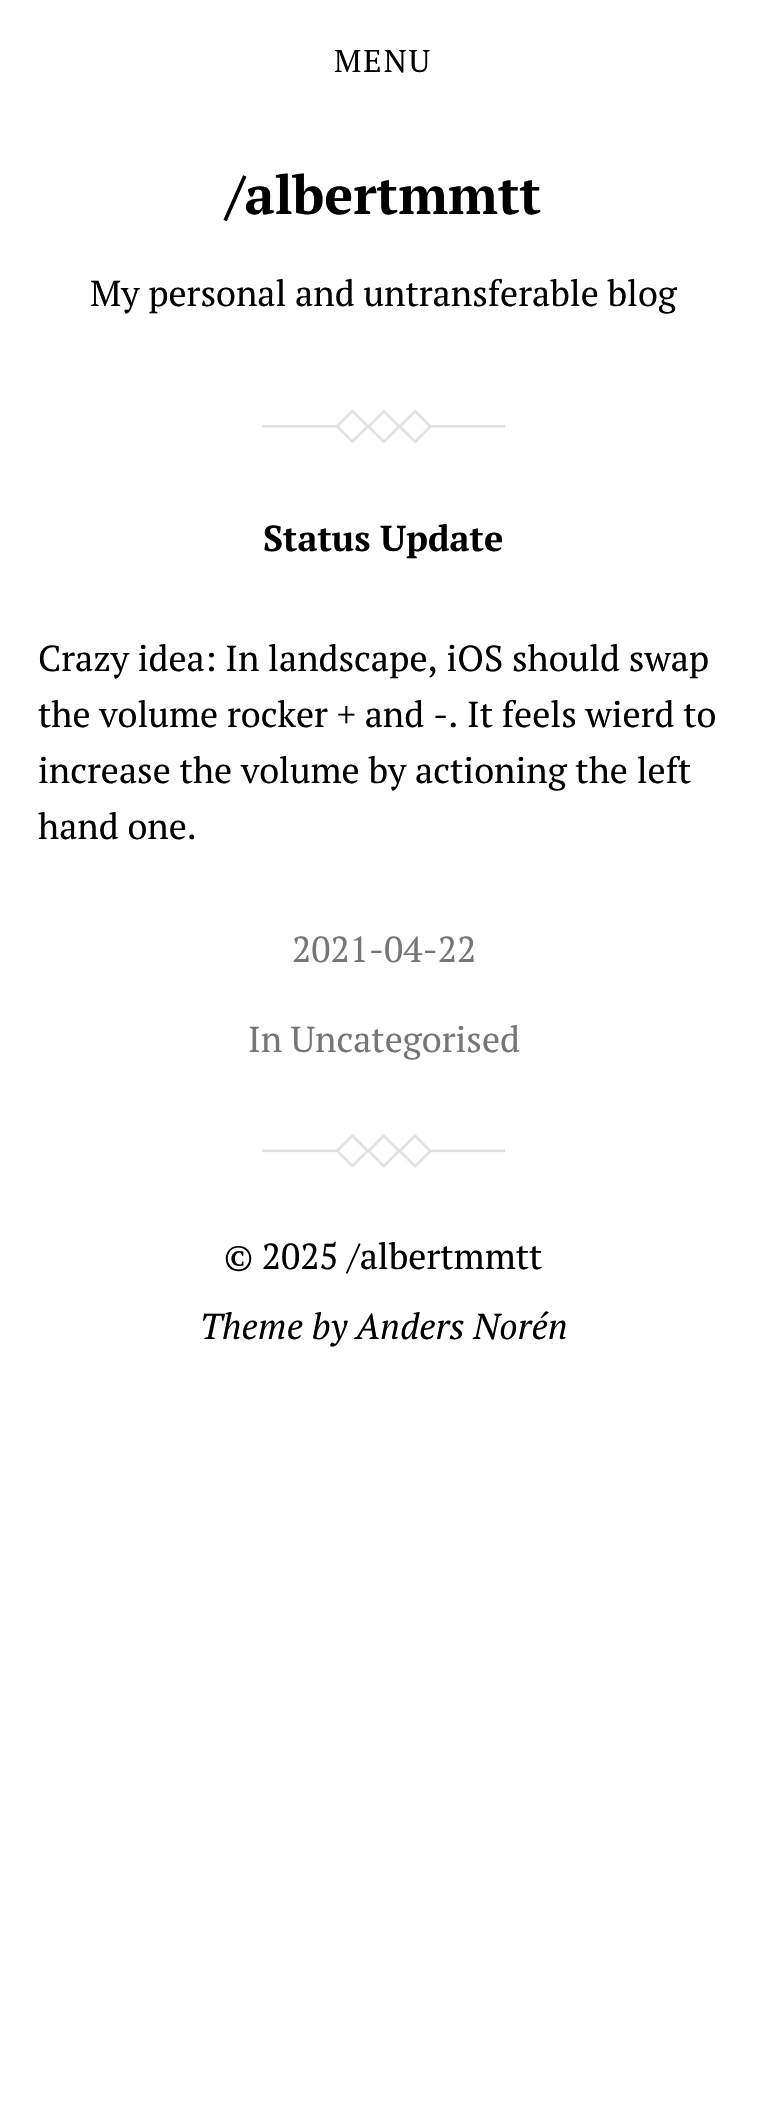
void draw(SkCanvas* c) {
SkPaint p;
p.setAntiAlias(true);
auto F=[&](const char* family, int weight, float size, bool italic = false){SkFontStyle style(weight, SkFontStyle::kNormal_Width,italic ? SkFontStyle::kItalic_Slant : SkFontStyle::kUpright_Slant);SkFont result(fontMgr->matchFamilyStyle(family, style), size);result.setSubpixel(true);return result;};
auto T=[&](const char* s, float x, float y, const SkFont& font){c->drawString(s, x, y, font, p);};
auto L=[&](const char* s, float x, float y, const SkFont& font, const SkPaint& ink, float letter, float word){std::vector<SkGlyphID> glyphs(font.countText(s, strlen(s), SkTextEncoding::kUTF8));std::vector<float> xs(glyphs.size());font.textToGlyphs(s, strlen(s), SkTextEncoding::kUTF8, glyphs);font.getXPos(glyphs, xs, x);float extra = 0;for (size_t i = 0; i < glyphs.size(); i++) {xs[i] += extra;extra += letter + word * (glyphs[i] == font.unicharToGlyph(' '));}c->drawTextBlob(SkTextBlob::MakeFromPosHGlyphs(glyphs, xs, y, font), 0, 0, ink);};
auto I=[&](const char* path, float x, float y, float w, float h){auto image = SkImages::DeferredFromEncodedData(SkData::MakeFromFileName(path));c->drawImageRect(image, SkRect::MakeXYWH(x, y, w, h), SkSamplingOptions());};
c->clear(0xffffffff);
auto f1 = F("PT Serif",400,31.5);
p.setColor(0xff000000);
L("MENU",334,72,f1,p,2,0);
auto f2 = F("PT Serif",700,54);
T("/albertmmtt",226,214,f2);
auto f3 = F("PT Serif",400,36);
T("My personal and untransferable blog",90,306,f3);
I("1.png",262,409,244,35);
auto f4 = F("PT Serif",700,36);
T("Status Update",263,551,f4);
T("Crazy idea: In landscape, iOS should swap",38,671,f3);
T("the volume rocker + and -. It feels wierd to",38,727,f3);
T("increase the volume by actioning the left",38,783,f3);
T("hand one.",38,839,f3);
p.setColor(0xff767676);
T("2021-04-22",292,962,f3);
T("In Uncategorised",248,1052,f3);
I("2.png",262,1134,244,34);
p.setColor(0xff000000);
T("© 2025 /albertmmtt",224,1269,f3);
auto f5 = F("PT Serif",400,36,true);
T("Theme by Anders Norén",200,1339,f5);
}
